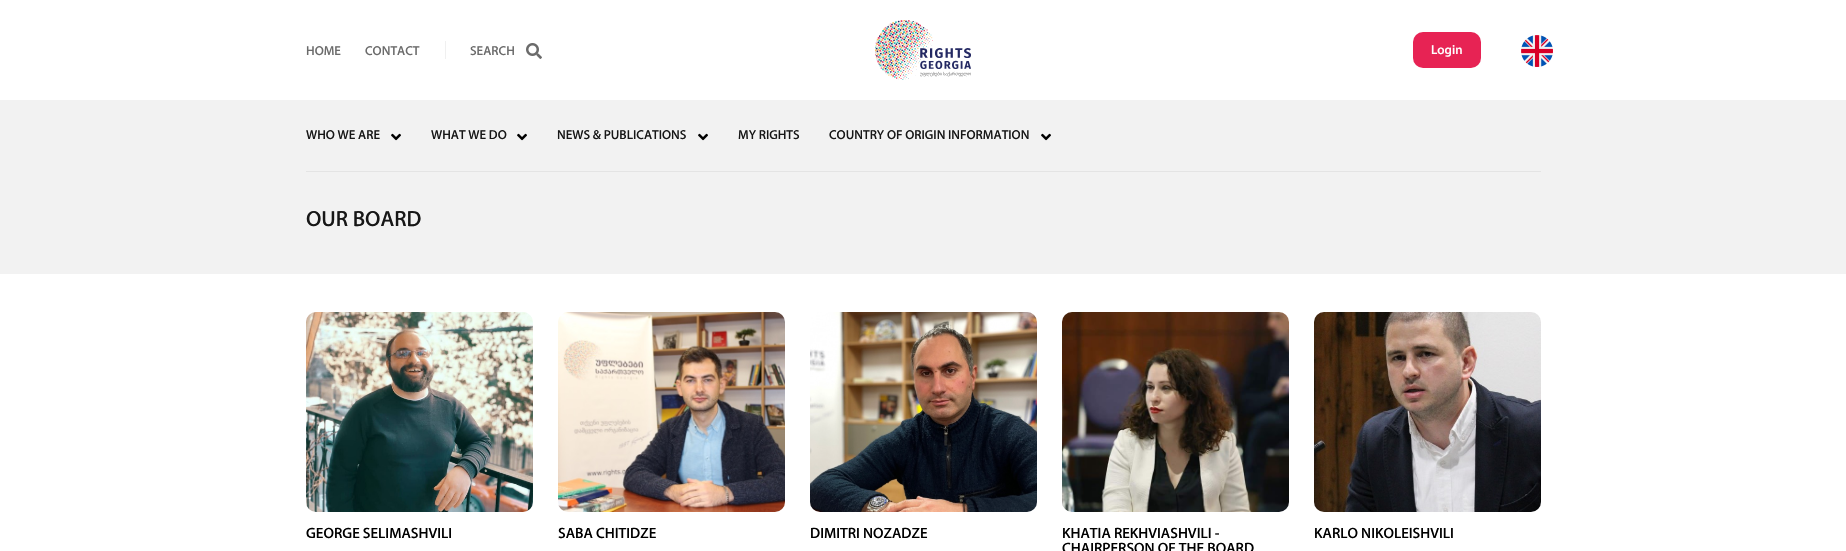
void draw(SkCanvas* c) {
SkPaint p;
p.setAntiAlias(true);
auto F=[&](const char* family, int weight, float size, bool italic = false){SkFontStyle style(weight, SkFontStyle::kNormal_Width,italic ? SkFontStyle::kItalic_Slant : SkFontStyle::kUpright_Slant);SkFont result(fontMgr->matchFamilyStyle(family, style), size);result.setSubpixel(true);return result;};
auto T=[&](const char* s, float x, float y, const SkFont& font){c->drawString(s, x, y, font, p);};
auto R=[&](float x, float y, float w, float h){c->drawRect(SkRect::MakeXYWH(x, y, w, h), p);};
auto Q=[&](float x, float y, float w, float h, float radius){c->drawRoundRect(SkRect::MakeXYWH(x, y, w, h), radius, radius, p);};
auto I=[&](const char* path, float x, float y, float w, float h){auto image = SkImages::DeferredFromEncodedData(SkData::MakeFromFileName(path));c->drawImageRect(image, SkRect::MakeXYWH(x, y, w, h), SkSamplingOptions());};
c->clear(0xffffffff);
auto f1 = F("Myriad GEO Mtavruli",500,13);
p.setColor(0xff6b6b6b);
T("HOME",306,55,f1);
T("CONTACT",365,55,f1);
p.setColor(0xfff0f0f0);
R(445,41,1,18);
p.setColor(0xff6b6b6b);
T("SEARCH",470,55,f1);
I("1.png",526,43,16,16);
I("2.png",875,20,96,60);
p.setColor(0xffe72354);
Q(1413,32,68,36,10);
p.setColor(0xffffffff);
T("Login",1431,54,f1);
I("3.png",1521,35,32,32);
p.setColor(0xfff2f2f2);
R(0,100,1846,174);
p.setColor(0xff171717);
T("WHO WE ARE",306,139,f1);
I("4.png",391,133,10,8);
T("WHAT WE DO",431,139,f1);
I("4.png",517,133,10,8);
T("NEWS & PUBLICATIONS",557,139,f1);
I("4.png",698,133,10,8);
T("MY RIGHTS",738,139,f1);
T("COUNTRY OF ORIGIN INFORMATION",829,139,f1);
I("4.png",1041,133,10,8);
p.setColor(0xffe4e4e4);
R(306,171,1235,1);
auto f2 = F("Myriad GEO Mtavruli",500,22);
p.setColor(0xff171717);
T("OUR BOARD",306,226,f2);
I("5.png",306,312,227,200);
auto f3 = F("Myriad GEO Mtavruli",500,15);
p.setColor(0xff000000);
T("GEORGE SELIMASHVILI",306,538,f3);
I("6.png",558,312,227,200);
T("SABA CHITIDZE",558,538,f3);
I("7.png",810,312,227,200);
T("DIMITRI NOZADZE",810,538,f3);
I("8.png",1062,312,227,200);
T("KHATIA REKHVIASHVILI -",1062,538,f3);
T("CHAIRPERSON OF THE BOARD",1062,553,f3);
I("9.png",1314,312,227,200);
T("KARLO NIKOLEISHVILI",1314,538,f3);
}
